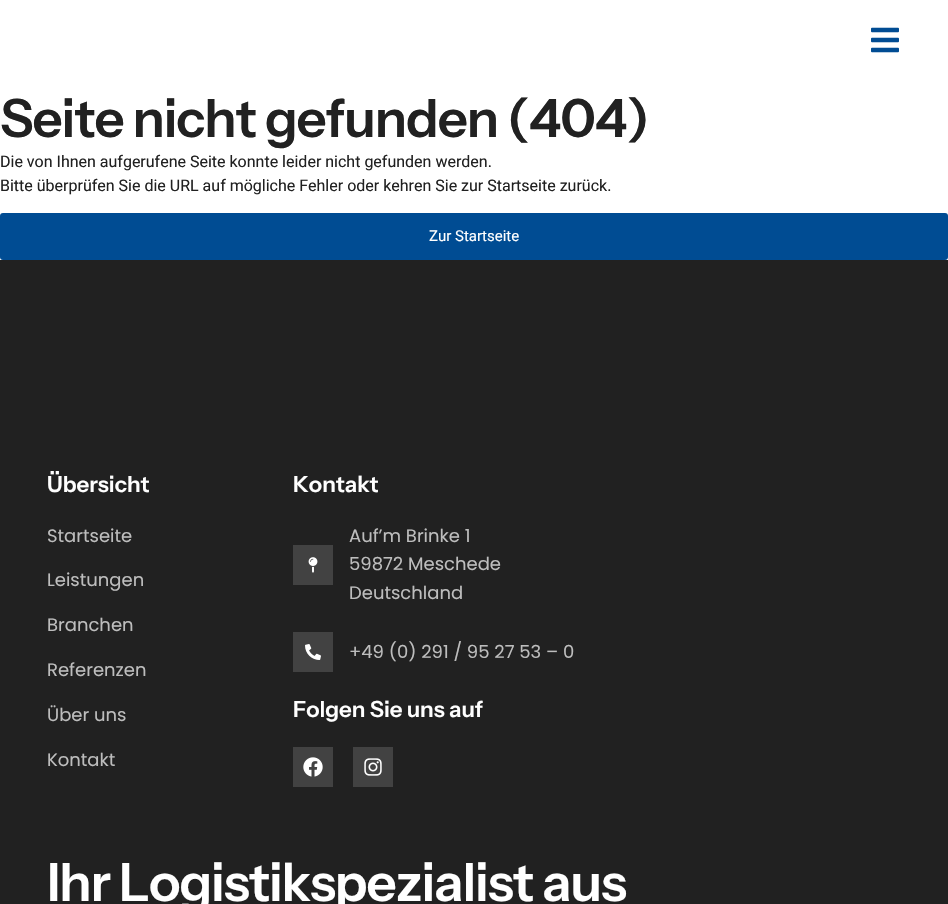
void draw(SkCanvas* c) {
SkPaint p;
p.setAntiAlias(true);
auto F=[&](const char* family, int weight, float size, bool italic = false){SkFontStyle style(weight, SkFontStyle::kNormal_Width,italic ? SkFontStyle::kItalic_Slant : SkFontStyle::kUpright_Slant);SkFont result(fontMgr->matchFamilyStyle(family, style), size);result.setSubpixel(true);return result;};
auto T=[&](const char* s, float x, float y, const SkFont& font){c->drawString(s, x, y, font, p);};
auto L=[&](const char* s, float x, float y, const SkFont& font, const SkPaint& ink, float letter, float word){std::vector<SkGlyphID> glyphs(font.countText(s, strlen(s), SkTextEncoding::kUTF8));std::vector<float> xs(glyphs.size());font.textToGlyphs(s, strlen(s), SkTextEncoding::kUTF8, glyphs);font.getXPos(glyphs, xs, x);float extra = 0;for (size_t i = 0; i < glyphs.size(); i++) {xs[i] += extra;extra += letter + word * (glyphs[i] == font.unicharToGlyph(' '));}c->drawTextBlob(SkTextBlob::MakeFromPosHGlyphs(glyphs, xs, y, font), 0, 0, ink);};
auto R=[&](float x, float y, float w, float h){c->drawRect(SkRect::MakeXYWH(x, y, w, h), p);};
auto Q=[&](float x, float y, float w, float h, float radius){c->drawRoundRect(SkRect::MakeXYWH(x, y, w, h), radius, radius, p);};
auto I=[&](const char* path, float x, float y, float w, float h){auto image = SkImages::DeferredFromEncodedData(SkData::MakeFromFileName(path));c->drawImageRect(image, SkRect::MakeXYWH(x, y, w, h), SkSamplingOptions());};
c->clear(0xffffffff);
I("1.png",871,27,28,26);
auto f1 = F("Instrument Sans",600,52.75);
p.setColor(0xff212121);
L("Seite nicht gefunden (404)",0,137,f1,p,-1.1,0);
auto f2 = F("Roboto",400,16);
T("Die von Ihnen aufgerufene Seite konnte leider nicht gefunden werden.",0,167,f2);
T("Bitte überprüfen Sie die URL auf mögliche Fehler oder kehren Sie zur Startseite zurück.",0,191,f2);
p.setColor(0xff004c93);
Q(0,213,948,47,3);
auto f3 = F("Roboto",400,15);
p.setColor(0xffffffff);
T("Zur Startseite",429,241,f3);
p.setColor(0xff212121);
R(0,260,948,644);
auto f4 = F("Instrument Sans",600,22.25);
p.setColor(0xffffffff);
T("Übersicht",47,492,f4);
auto f5 = F("Poppins",400,18);
p.setColor(0xffbdbdbd);
T("Startseite",47,542,f5);
T("Leistungen",47,586,f5);
T("Branchen",47,631,f5);
T("Referenzen",47,676,f5);
T("Über uns",47,721,f5);
T("Kontakt",47,766,f5);
p.setColor(0xffffffff);
T("Kontakt",293,492,f4);
I("2.png",293,545,40,40);
p.setColor(0xffbdbdbd);
T("Auf’m Brinke 1",349,542,f5);
T("59872 Meschede",349,570,f5);
T("Deutschland",349,599,f5);
I("3.png",293,632,40,40);
T("+49 (0) 291 / 95 27 53 – 0",349,658,f5);
p.setColor(0xffffffff);
T("Folgen Sie uns auf",293,717,f4);
p.setColor(0xff424242);
R(293,747,40,40);
I("4.png",303,757,20,20);
R(353,747,40,40);
I("5.png",364,758,18,18);
p.setColor(0xffffffff);
L("Ihr Logistikspezialist aus",47,901,f1,p,-1.1,0);
}
